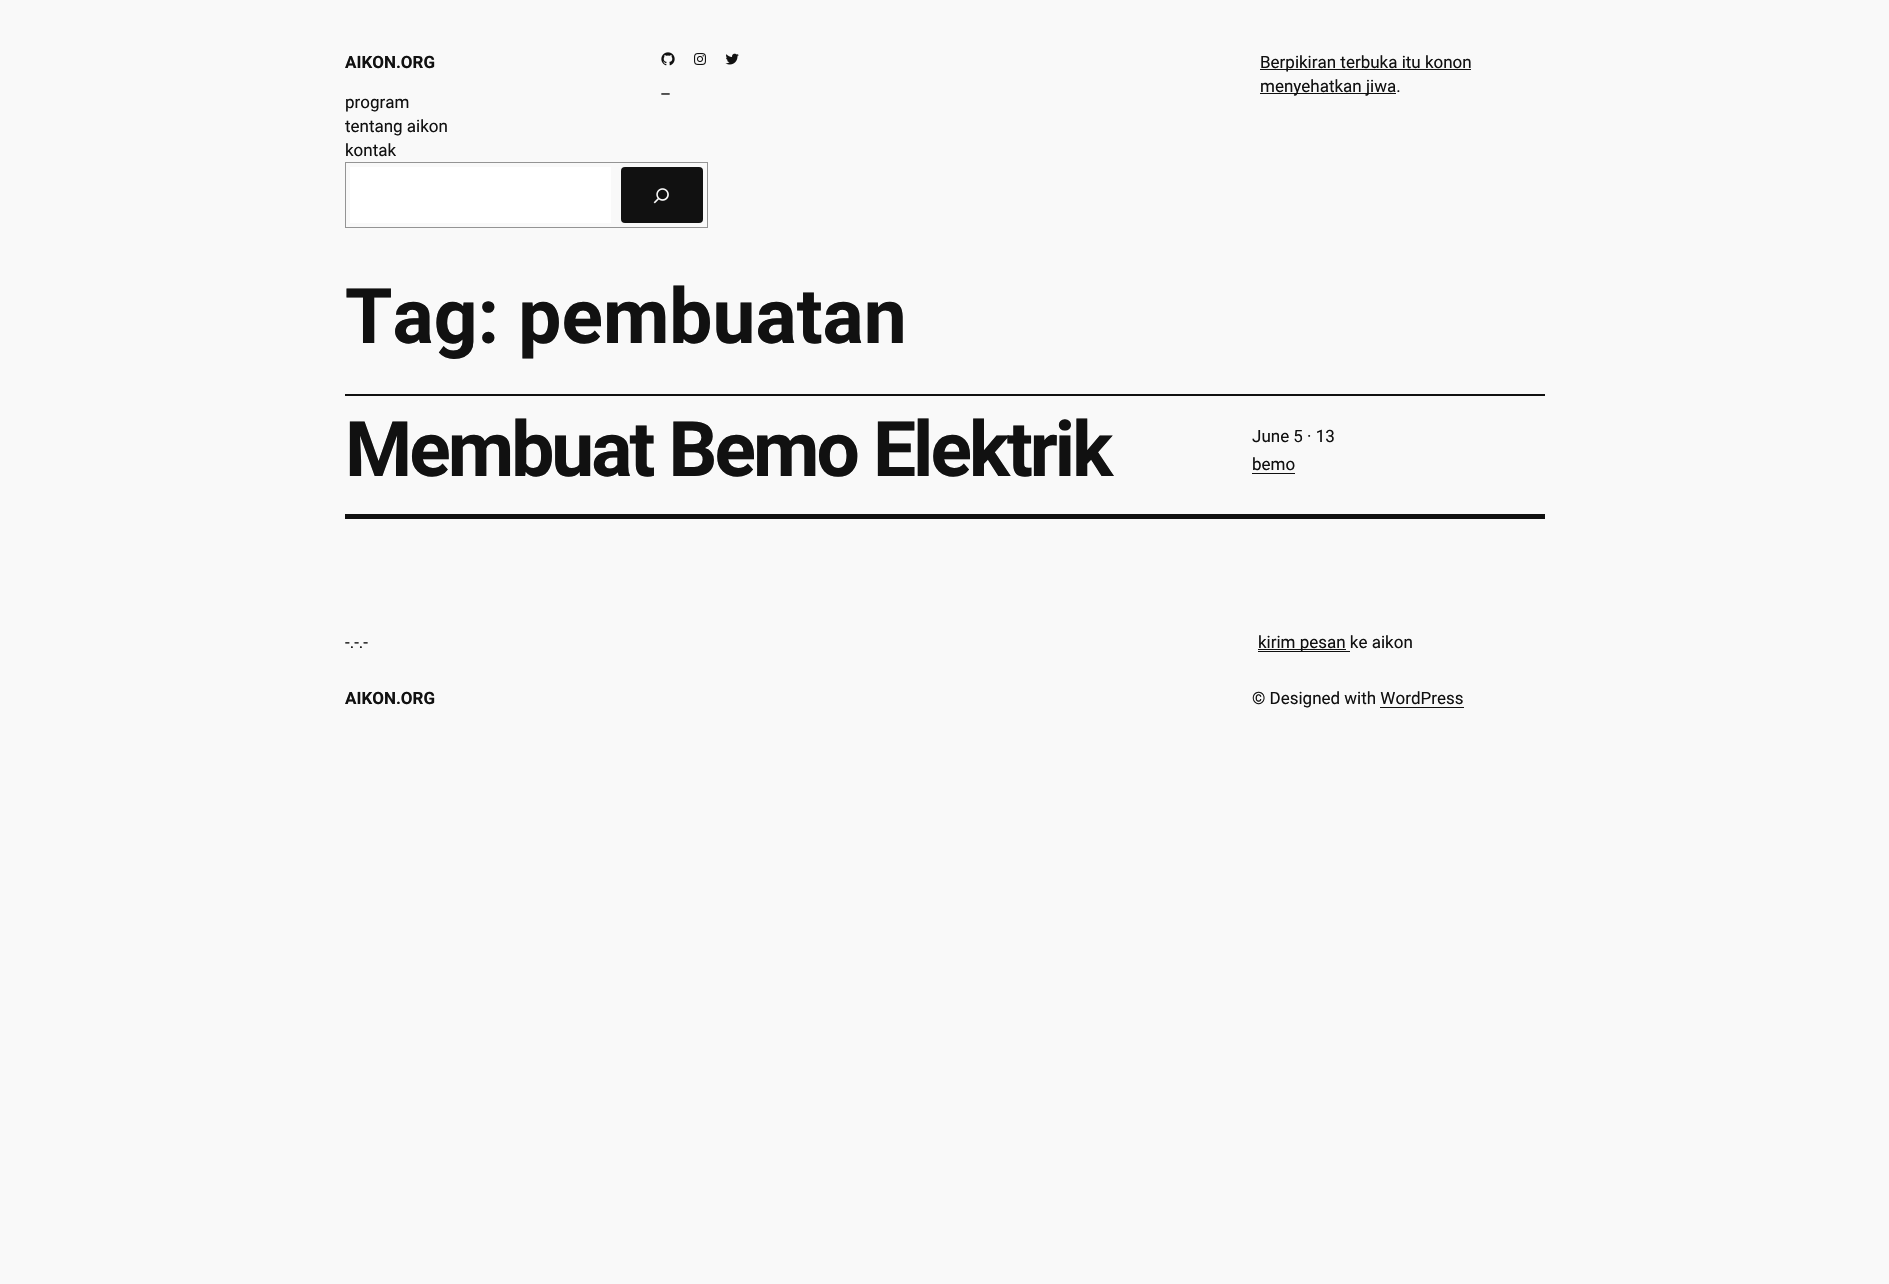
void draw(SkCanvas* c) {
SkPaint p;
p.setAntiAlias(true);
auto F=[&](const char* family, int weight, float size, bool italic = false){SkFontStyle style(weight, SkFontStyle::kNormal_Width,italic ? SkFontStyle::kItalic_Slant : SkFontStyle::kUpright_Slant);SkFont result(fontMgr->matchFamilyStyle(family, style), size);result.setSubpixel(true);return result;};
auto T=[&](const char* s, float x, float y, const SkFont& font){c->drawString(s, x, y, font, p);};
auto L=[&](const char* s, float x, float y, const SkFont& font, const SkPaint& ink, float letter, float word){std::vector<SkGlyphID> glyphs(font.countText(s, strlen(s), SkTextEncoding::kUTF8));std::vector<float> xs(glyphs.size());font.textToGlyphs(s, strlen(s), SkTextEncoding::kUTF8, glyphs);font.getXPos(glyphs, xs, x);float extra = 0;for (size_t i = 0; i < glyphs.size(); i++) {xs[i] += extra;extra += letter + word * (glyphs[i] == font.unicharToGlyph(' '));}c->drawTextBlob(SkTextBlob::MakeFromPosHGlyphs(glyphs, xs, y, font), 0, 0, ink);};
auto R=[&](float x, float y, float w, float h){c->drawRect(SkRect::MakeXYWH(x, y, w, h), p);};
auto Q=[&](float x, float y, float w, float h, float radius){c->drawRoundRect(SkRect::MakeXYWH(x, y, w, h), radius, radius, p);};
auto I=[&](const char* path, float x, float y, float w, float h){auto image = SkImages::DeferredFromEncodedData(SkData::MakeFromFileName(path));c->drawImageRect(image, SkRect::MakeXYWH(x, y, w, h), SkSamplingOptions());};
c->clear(0xfff9f9f9);
auto f1 = F("Roboto",700,17);
p.setColor(0xff111111);
T("AIKON.ORG",345,68,f1);
auto f2 = F("Roboto",400,17);
T("program",345,108,f2);
T("tentang aikon",345,132,f2);
T("kontak",345,156,f2);
p.setStroke(true);
p.setStrokeWidth(1);
p.setColor(0xff949494);
c->drawRect(SkRect::MakeXYWH(345.5,162.5,362,65),p);
p.setStroke(false);
p.setColor(0xffffffff);
R(350,167,261,56);
p.setColor(0xff111111);
Q(621,167,82,56,4);
I("1.png",653,188,16,16);
I("2.png",661,52,14,14);
I("3.png",694,53,12,12);
I("4.png",725,53,14,12);
T("–",660,100,f2);
R(1260,69,211,1);
T("Berpikiran terbuka itu konon",1260,68,f2);
R(1260,93,136,1);
T("menyehatkan jiwa.",1260,92,f2);
auto f3 = F("Roboto",700,76.75);
T("Tag: pembuatan",345,343,f3);
R(345,394,1200,2);
L("Membuat Bemo Elektrik",345,476,f3,p,-3,0);
T("June 5 · 13",1252,442,f2);
T("bemo",1252,470,f2);
R(1252,473,43,1);
R(345,514,1200,5);
T("-.-.-",345,648,f2);
R(1258,651,92,1);
R(1258,649,88,1);
T("kirim pesan ke aikon",1258,648,f2);
T("AIKON.ORG",345,704,f1);
T("© Designed with WordPress",1252,704,f2);
R(1380,707,84,1);
}
